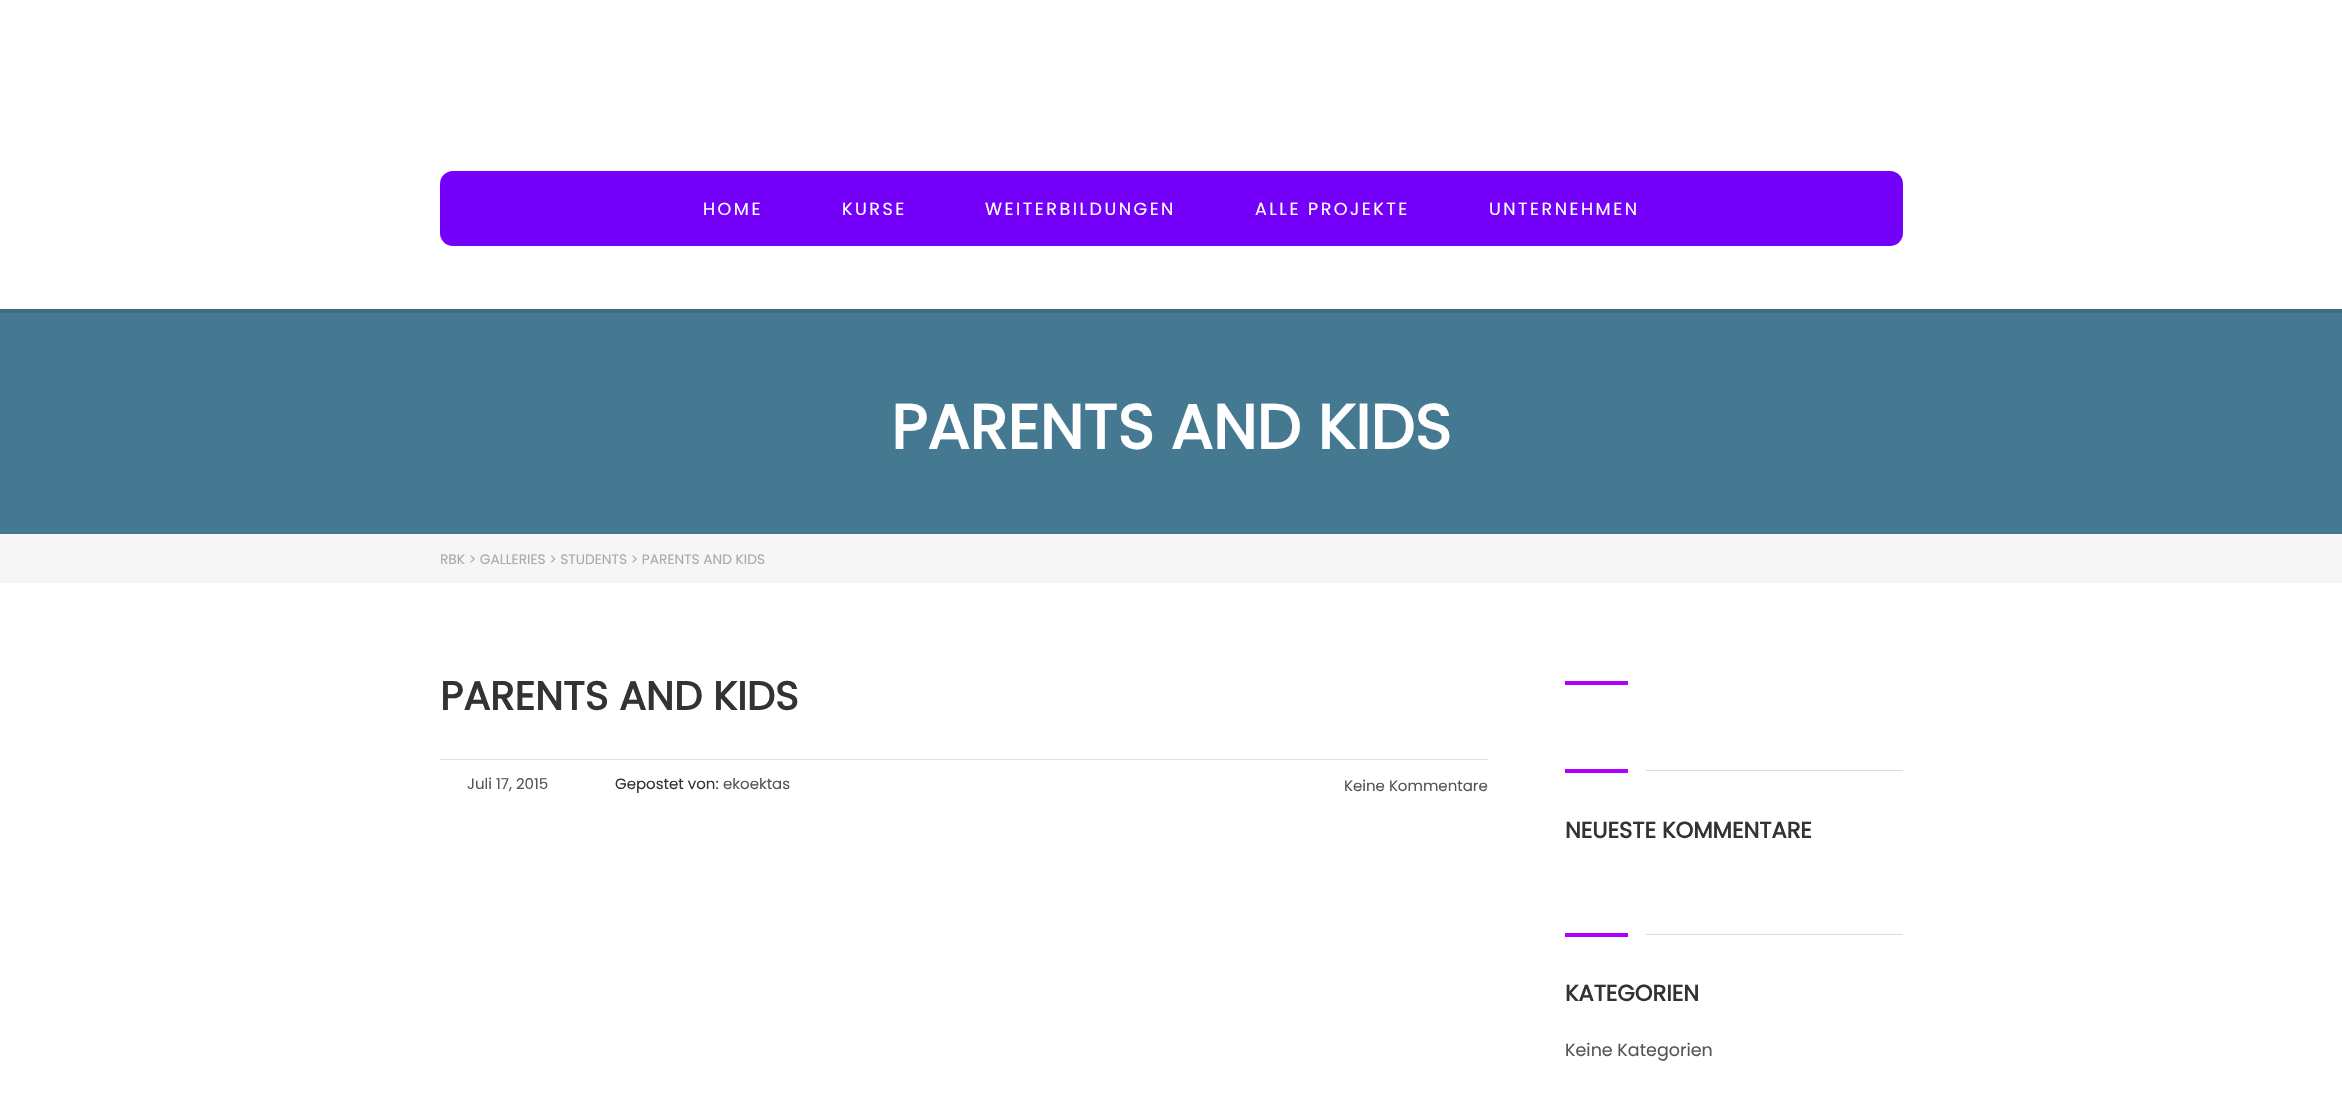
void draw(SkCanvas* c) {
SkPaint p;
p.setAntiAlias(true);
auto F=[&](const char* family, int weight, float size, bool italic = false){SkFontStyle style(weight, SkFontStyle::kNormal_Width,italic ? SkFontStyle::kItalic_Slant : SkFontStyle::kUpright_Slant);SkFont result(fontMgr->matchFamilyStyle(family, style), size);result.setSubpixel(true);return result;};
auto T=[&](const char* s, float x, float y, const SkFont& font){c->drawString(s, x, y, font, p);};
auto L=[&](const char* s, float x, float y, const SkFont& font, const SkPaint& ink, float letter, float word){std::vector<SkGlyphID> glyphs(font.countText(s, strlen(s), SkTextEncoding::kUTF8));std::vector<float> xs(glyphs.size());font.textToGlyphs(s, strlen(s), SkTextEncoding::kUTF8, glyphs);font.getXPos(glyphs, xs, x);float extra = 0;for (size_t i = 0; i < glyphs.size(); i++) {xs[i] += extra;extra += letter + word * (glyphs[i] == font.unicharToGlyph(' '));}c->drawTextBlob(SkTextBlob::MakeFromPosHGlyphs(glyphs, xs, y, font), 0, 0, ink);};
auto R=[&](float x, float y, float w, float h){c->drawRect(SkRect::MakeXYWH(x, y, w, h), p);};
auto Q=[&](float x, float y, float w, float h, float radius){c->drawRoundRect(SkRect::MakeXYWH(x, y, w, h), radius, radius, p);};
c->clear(0xffffffff);
p.setColor(0xff7400f9);
Q(440,171,1463,75,13);
auto f1 = F("Poppins",400,17.5);
p.setColor(0xffffffff);
L("HOME",703,215,f1,p,2.5,0);
L("KURSE",842,215,f1,p,2.5,0);
L("WEITERBILDUNGEN",985,215,f1,p,2.5,0);
L("ALLE PROJEKTE",1255,215,f1,p,2.5,0);
L("UNTERNEHMEN",1489,215,f1,p,2.5,0);
p.setColor(0xff3e6d83);
R(0,309,2342,4);
p.setColor(0xff457992);
R(0,313,2342,221);
auto f2 = F("Poppins",700,62.5);
p.setColor(0xffffffff);
T("PARENTS AND KIDS",891,449,f2);
p.setColor(0xfff6f6f6);
R(0,534,2342,49);
p.setColor(0xfff0f2f5);
R(0,581,2342,1);
auto f3 = F("Poppins",400,13.75);
p.setColor(0xffaaaaaa);
T("RBK > GALLERIES > STUDENTS > PARENTS AND KIDS",440,564,f3);
p.setColor(0xffe1e2e4);
R(440,759,1048,1);
auto f4 = F("Poppins",700,40);
p.setColor(0xff333333);
T("PARENTS AND KIDS",440,710,f4);
auto f5 = F("Poppins",400,15);
p.setColor(0xff555555);
T("Juli 17, 2015",467,789,f5);
p.setColor(0xff333333);
T("Gepostet von:",615,789,f5);
p.setColor(0xff555555);
T("ekoektas",723,789,f5);
T("Keine Kommentare",1344,791,f5);
p.setColor(0xffae00ff);
R(1565,681,63,4);
R(1565,769,63,4);
p.setColor(0xffdcdcdc);
R(1646,770,257,1);
auto f6 = F("Poppins",700,22.5);
p.setColor(0xff333333);
T("NEUESTE KOMMENTARE",1565,838,f6);
p.setColor(0xffae00ff);
R(1565,933,63,4);
p.setColor(0xffdcdcdc);
R(1646,934,257,1);
p.setColor(0xff333333);
T("KATEGORIEN",1565,1001,f6);
p.setColor(0xff555555);
T("Keine Kategorien",1565,1056,f1);
}
